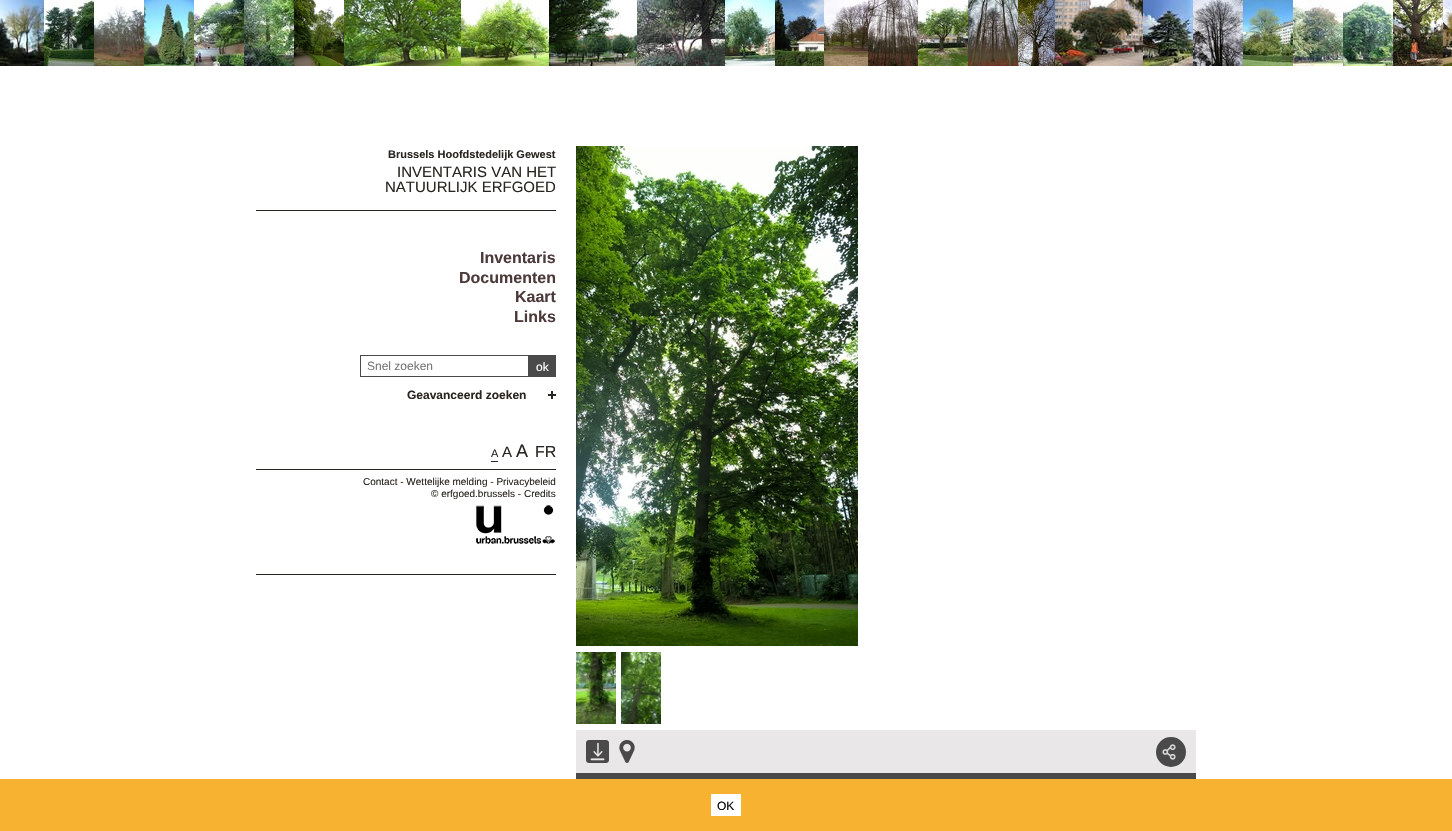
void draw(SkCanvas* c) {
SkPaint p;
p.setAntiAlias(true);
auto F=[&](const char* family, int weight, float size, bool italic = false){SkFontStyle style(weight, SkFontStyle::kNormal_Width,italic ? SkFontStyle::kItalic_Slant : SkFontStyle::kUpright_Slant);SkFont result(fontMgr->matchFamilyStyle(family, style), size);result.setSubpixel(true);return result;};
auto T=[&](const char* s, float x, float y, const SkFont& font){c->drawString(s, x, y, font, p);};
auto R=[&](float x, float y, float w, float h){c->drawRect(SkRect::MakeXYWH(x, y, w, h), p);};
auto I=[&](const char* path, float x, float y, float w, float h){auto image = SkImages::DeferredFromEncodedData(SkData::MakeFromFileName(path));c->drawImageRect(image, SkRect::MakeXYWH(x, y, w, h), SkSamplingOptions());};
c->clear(0xffffffff);
I("1.png",0,0,44,66);
I("2.png",44,0,50,66);
I("3.png",94,5,50,61);
I("4.png",144,0,50,66);
I("5.png",194,0,50,66);
I("6.png",244,0,50,66);
I("7.png",294,0,50,66);
I("8.png",344,0,117,66);
I("9.png",461,0,88,66);
I("10.png",549,0,88,66);
I("11.png",637,0,88,66);
I("12.png",725,0,50,66);
I("13.png",775,0,49,66);
I("14.png",824,0,44,66);
I("15.png",868,0,50,66);
I("16.png",918,0,50,66);
I("17.png",968,0,50,66);
I("18.png",1018,0,37,66);
I("19.png",1055,0,88,66);
I("20.png",1143,0,50,66);
I("21.png",1193,0,50,66);
I("22.png",1243,0,50,66);
I("23.png",1293,0,50,66);
I("24.png",1343,0,50,66);
I("25.png",1393,0,50,66);
I("26.png",1443,0,9,66);
p.setColor(0xff2a2520);
R(256,210,300,1);
auto f1 = F("Liberation Sans",700,11);
T("Brussels Hoofdstedelijk Gewest",388,158,f1);
auto f2 = F("Liberation Sans",400,15);
T("INVENTARIS VAN HET",397,177,f2);
T("NATUURLIJK ERFGOED",385,192,f2);
auto f3 = F("Liberation Sans",700,16);
p.setColor(0xff4c3a3a);
T("Inventaris",480,263,f3);
T("Documenten",459,283,f3);
T("Kaart",515,302,f3);
T("Links",514,322,f3);
p.setColor(0xff2a2520);
R(256,574,300,1);
p.setStroke(true);
p.setStrokeWidth(1);
p.setColor(0xff4a4a4a);
c->drawRect(SkRect::MakeXYWH(360.5,355.5,168,21),p);
auto f4 = F("Liberation Sans",400,12);
p.setStroke(false);
p.setColor(0xff757575);
T("Snel zoeken",367,370,f4);
p.setColor(0xff4a4a4a);
R(529,355,27,22);
p.setColor(0xffffffff);
T("ok",536,371,f4);
auto f5 = F("Liberation Sans",700,12);
p.setColor(0xff2a2520);
T("Geavanceerd zoeken",407,399,f5);
R(551,391,2,8);
R(548,394,8,2);
R(491,461,7,1);
auto f6 = F("Liberation Sans",400,11);
T("A",491,457,f6);
T("A",502,457,f2);
auto f7 = F("Liberation Sans",400,18);
T("A",516,457,f7);
auto f8 = F("Liberation Sans",400,16);
T("FR",535,457,f8);
R(256,469,300,1);
auto f9 = F("Liberation Sans",400,10);
T("Contact - Wettelijke melding - Privacybeleid",363,485,f9);
T("© erfgoed.brussels - Credits",431,497,f9);
I("27.png",476,505,79,39);
I("28.png",576,146,282,500);
I("29.png",576,652,40,72);
I("30.png",621,652,40,72);
p.setColor(0xffe9e7e7);
R(576,730,620,43);
I("31.png",586,740,23,23);
I("32.png",619,740,16,23);
p.setColor(0xff4a4a4a);
c->drawCircle(1171,752,15,p);
I("33.png",1162,744,14,16);
R(576,773,620,6);
p.setColor(0xfff8b232);
R(0,779,1452,52);
p.setColor(0xffffffff);
R(711,794,30,22);
p.setColor(0xff000000);
T("OK",717,810,f4);
}
